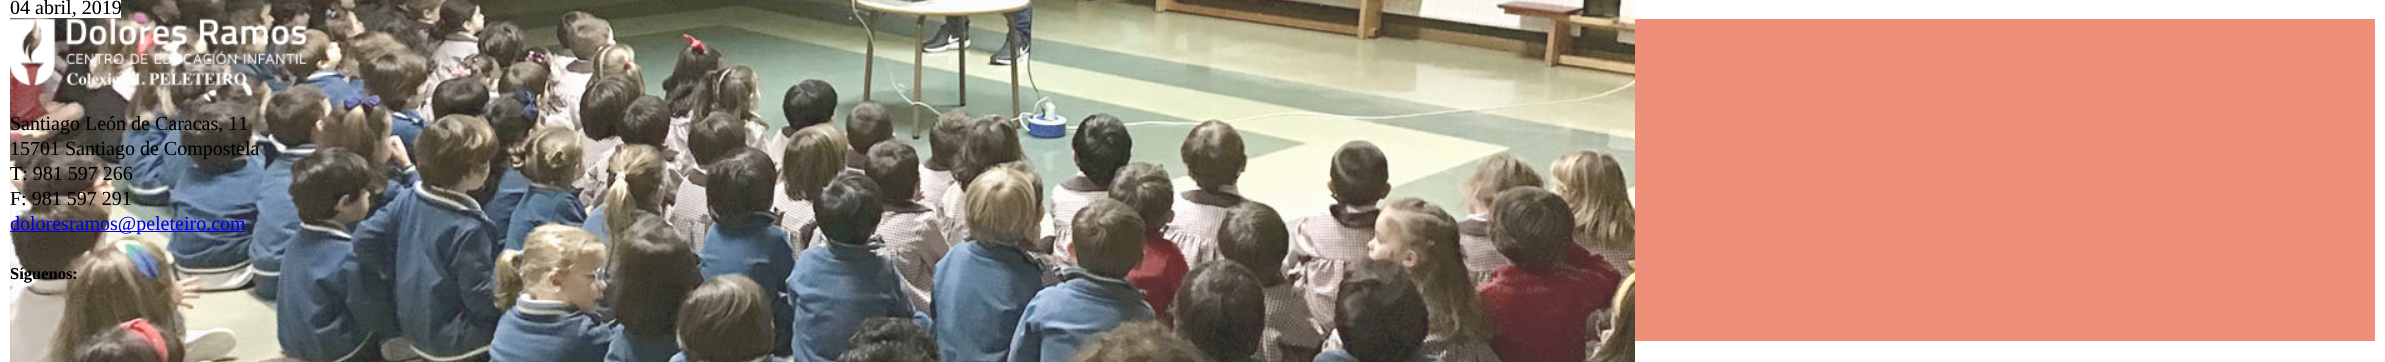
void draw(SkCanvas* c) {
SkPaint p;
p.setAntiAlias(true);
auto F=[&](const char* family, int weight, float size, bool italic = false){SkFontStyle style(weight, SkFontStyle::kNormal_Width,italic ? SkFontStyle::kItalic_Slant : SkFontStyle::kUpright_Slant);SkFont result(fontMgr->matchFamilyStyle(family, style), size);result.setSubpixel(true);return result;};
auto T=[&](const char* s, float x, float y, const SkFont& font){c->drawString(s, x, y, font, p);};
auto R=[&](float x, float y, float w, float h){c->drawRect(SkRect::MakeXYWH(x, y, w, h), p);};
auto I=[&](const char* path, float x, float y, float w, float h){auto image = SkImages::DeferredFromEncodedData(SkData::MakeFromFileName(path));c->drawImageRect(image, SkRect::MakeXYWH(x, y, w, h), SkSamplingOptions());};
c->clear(0xffffffff);
I("1.png",10,0,1625,362);
p.setColor(0xffffffff);
R(10,0,111,18);
auto f1 = F("Liberation Serif",400,20);
p.setColor(0xff000000);
T("04 abril, 2019",10,14,f1);
p.setColor(0xffee8f7a);
R(1635,19,740,322);
I("2.png",10,18,297,68);
p.setColor(0xff000000);
T("Santiago León de Caracas, 11",10,130,f1);
T("15701 Santiago de Compostela",10,155,f1);
T("T: 981 597 266",10,180,f1);
T("F: 981 597 291",10,205,f1);
p.setColor(0xff0000ee);
R(10,231,235,1);
T("doloresramos@peleteiro.com",10,230,f1);
auto f2 = F("Liberation Serif",700,16.5);
p.setColor(0xff000000);
T("Síguenos:",10,279,f2);
}
